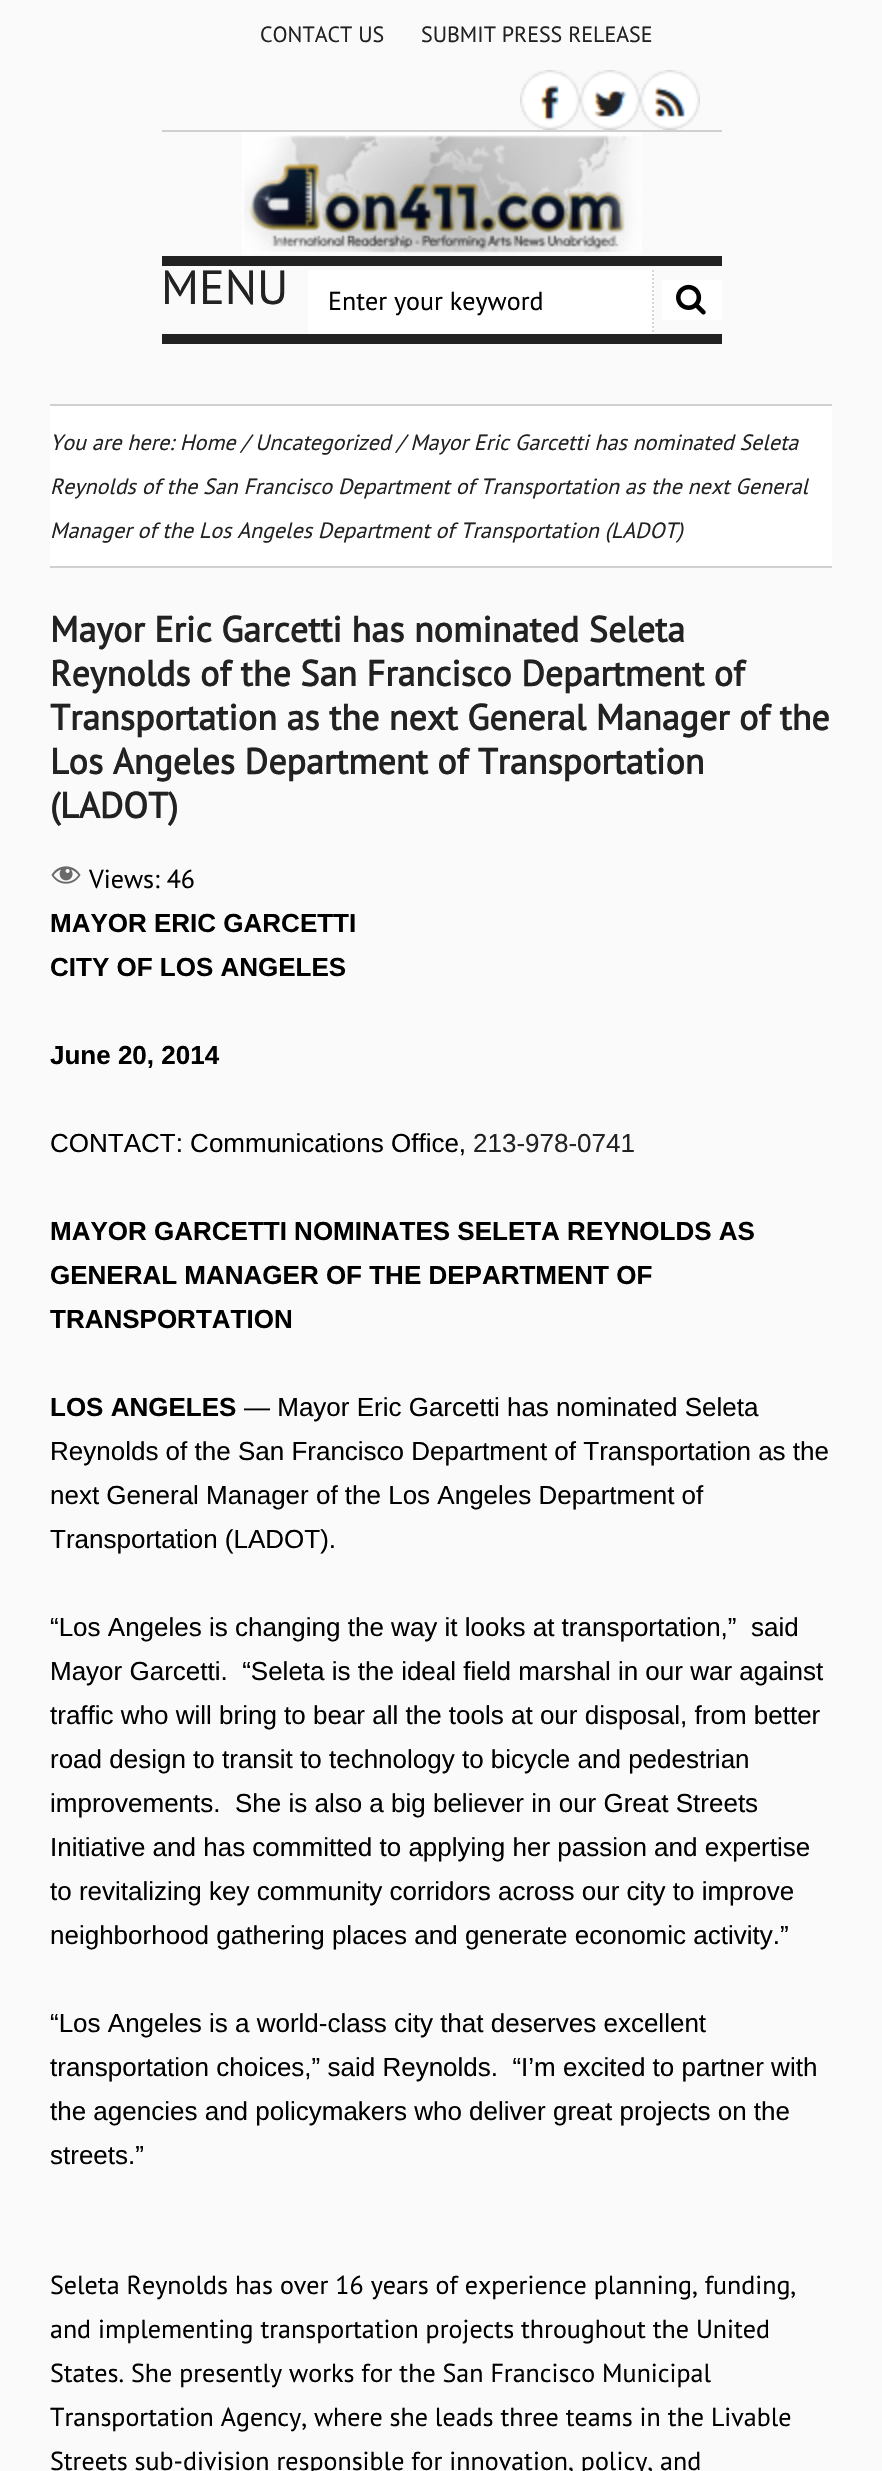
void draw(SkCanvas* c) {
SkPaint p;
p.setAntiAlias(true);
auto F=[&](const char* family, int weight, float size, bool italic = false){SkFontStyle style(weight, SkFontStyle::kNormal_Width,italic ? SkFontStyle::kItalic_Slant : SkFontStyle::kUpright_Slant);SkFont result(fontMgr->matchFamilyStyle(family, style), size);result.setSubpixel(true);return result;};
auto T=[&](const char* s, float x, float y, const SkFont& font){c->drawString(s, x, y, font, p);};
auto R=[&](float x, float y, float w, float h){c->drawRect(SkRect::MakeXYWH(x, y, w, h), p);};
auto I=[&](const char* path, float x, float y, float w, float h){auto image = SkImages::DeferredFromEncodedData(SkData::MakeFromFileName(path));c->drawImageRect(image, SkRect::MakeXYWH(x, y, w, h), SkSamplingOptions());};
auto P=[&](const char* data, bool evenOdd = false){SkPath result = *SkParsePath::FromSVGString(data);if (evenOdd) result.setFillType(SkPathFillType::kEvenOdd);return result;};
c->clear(0xfffafafa);
p.setColor(0xffd0d0d0);
R(162,130,560,2);
auto f1 = F("PT Sans",400,22);
p.setColor(0xff222222);
T("CONTACT US",260,42,f1);
T("SUBMIT PRESS RELEASE",421,42,f1);
I("1.png",520,70,60,60);
I("2.png",580,70,60,60);
I("3.png",640,70,60,60);
I("4.png",242,132,400,122);
R(162,256,560,10);
R(162,334,560,10);
auto f2 = F("PT Sans",400,48);
T("MENU",161,304,f2);
p.setColor(0xffffffff);
R(308,270,346,64);
p.setStroke(true);
p.setStrokeWidth(2);
p.setColor(0xffd7d7d7);
p.setPathEffect(SkDashPathEffect::Make({{2,2}}, 0));
c->drawPath(P("M653 270v64"),p);
p.setPathEffect(nullptr);
auto f3 = F("PT Sans",400,26);
p.setStroke(false);
p.setColor(0xff000000);
T("Enter your keyword",328,310,f3);
p.setColor(0xffffffff);
R(662,280,60,40);
I("5.png",676,284,30,31);
R(50,406,782,160);
p.setColor(0xffd0d0d0);
R(50,404,782,2);
R(50,566,782,2);
auto f4 = F("PT Sans",400,22,true);
p.setColor(0xff222222);
T("You are here: Home / Uncategorized / Mayor Eric Garcetti has nominated Seleta",50,450,f4);
T("Reynolds of the San Francisco Department of Transportation as the next General",50,494,f4);
T("Manager of the Los Angeles Department of Transportation (LADOT)",50,538,f4);
auto f5 = F("PT Sans",700,36);
T("Mayor Eric Garcetti has nominated Seleta",50,642,f5);
T("Reynolds of the San Francisco Department of",50,686,f5);
T("Transportation as the next General Manager of the",50,730,f5);
T("Los Angeles Department of Transportation",50,774,f5);
T("(LADOT)",50,818,f5);
I("6.png",51,866,30,18);
p.setColor(0xff000000);
T("Views: 46",89,888,f3);
auto f6 = F("Liberation Sans",700,26);
T("MAYOR ERIC GARCETTI",50,932,f6);
T("CITY OF LOS ANGELES",50,976,f6);
T("June 20, 2014",50,1064,f6);
auto f7 = F("Liberation Sans",400,26);
T("CONTACT: Communications Office,",50,1152,f7);
p.setColor(0xff222222);
T("213-978-0741",473,1152,f7);
p.setColor(0xff000000);
T("MAYOR GARCETTI NOMINATES SELETA REYNOLDS AS",50,1240,f6);
T("GENERAL MANAGER OF THE DEPARTMENT OF",50,1284,f6);
T("TRANSPORTATION",50,1328,f6);
T("LOS ANGELES",50,1416,f6);
T("— Mayor Eric Garcetti has nominated Seleta",244,1416,f7);
T("Reynolds of the San Francisco Department of Transportation as the",50,1460,f7);
T("next General Manager of the Los Angeles Department of",50,1504,f7);
T("Transportation (LADOT).",50,1548,f7);
T("“Los Angeles is changing the way it looks at transportation,”  said",50,1636,f7);
T("Mayor Garcetti.  “Seleta is the ideal field marshal in our war against",50,1680,f7);
T("traffic who will bring to bear all the tools at our disposal, from better",50,1724,f7);
T("road design to transit to technology to bicycle and pedestrian",50,1768,f7);
T("improvements.  She is also a big believer in our Great Streets",50,1812,f7);
T("Initiative and has committed to applying her passion and expertise",50,1856,f7);
T("to revitalizing key community corridors across our city to improve",50,1900,f7);
T("neighborhood gathering places and generate economic activity.”",50,1944,f7);
T("“Los Angeles is a world-class city that deserves excellent",50,2032,f7);
T("transportation choices,” said Reynolds.  “I’m excited to partner with",50,2076,f7);
T("the agencies and policymakers who deliver great projects on the",50,2120,f7);
T("streets.”",50,2164,f7);
T("Seleta Reynolds has over 16 years of experience planning, funding,",50,2294,f3);
T("and implementing transportation projects throughout the United",50,2338,f3);
T("States. She presently works for the San Francisco Municipal",50,2382,f3);
T("Transportation Agency, where she leads three teams in the Livable",50,2426,f3);
T("Streets sub-division responsible for innovation, policy, and",50,2470,f3);
}
